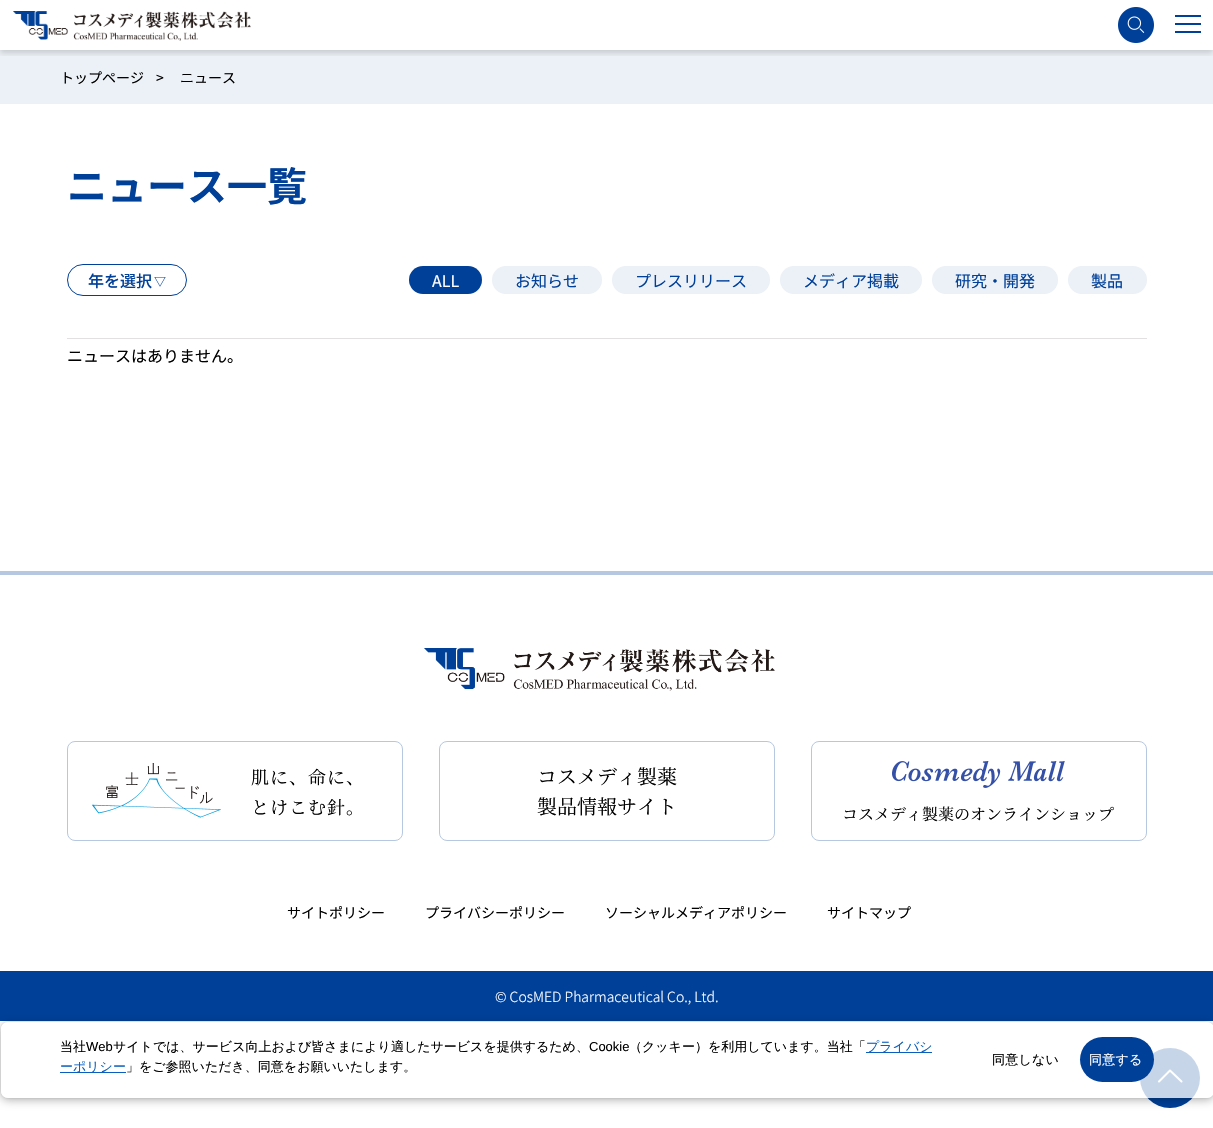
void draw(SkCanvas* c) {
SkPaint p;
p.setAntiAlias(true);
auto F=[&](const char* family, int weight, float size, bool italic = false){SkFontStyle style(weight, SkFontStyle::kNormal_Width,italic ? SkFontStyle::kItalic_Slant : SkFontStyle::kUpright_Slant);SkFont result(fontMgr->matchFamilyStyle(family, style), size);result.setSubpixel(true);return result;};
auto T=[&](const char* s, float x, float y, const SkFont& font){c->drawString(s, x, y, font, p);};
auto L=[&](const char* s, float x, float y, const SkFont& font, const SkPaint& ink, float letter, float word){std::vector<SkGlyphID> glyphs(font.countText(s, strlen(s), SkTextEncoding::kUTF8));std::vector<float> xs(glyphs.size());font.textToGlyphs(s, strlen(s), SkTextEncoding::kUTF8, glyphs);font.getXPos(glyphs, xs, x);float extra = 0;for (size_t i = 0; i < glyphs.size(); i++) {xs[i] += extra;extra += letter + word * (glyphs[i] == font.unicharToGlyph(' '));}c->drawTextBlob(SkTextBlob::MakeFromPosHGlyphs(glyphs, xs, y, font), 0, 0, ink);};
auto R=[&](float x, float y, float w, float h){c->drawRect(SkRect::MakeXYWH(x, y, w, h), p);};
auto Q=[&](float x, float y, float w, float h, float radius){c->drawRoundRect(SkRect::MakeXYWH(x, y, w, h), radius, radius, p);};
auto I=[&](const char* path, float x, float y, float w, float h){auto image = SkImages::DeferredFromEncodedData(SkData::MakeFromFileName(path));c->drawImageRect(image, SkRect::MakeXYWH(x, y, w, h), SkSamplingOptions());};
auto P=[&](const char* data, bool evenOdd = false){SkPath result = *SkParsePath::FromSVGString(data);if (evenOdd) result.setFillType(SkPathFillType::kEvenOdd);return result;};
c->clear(0xffffffff);
p.setColor(0xffecf1f7);
R(0,50,1213,54);
c->save();
c->clipRect(SkRect::MakeXYWH(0,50,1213,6));
p.setColor(0x29000000);
p.setMaskFilter(SkMaskFilter::MakeBlur(kNormal_SkBlurStyle, 3));
c->drawRect(SkRect::MakeXYWH(0,3,1213,50),p);
p.setMaskFilter(nullptr);
c->restore();
I("1.png",13,11,238,30);
I("2.png",1118,7,36,36);
p.setColor(0xff004098);
R(1175,15,26,2);
R(1175,23,26,2);
R(1175,31,26,2);
auto f1 = F("Noto Sans JP",400,14);
p.setColor(0xff000000);
T("トップページ",60,83,f1);
T(">",156,83,f1);
T("ニュース",180,83,f1);
auto f2 = F("Noto Sans JP",700,40);
p.setColor(0xff004098);
T("ニュース一覧",67,201,f2);
I("3.png",154,277,12,10);
p.setStroke(true);
p.setStrokeWidth(1);
c->drawRoundRect(SkRect::MakeXYWH(67.5,264.5,119,31),15.5,15.5,p);
auto f3 = F("Noto Sans JP",500,16);
p.setStroke(false);
T("年を選択",88,287,f3);
Q(409,266,73,28,14);
auto f4 = F("Noto Sans JP",400,16);
p.setColor(0xffffffff);
T("ALL",432,287,f4);
p.setColor(0xffecf1f7);
Q(492,266,110,28,14);
p.setColor(0xff004098);
T("お知らせ",515,287,f4);
p.setColor(0xffecf1f7);
Q(612,266,158,28,14);
p.setColor(0xff004098);
T("プレスリリース",635,287,f4);
p.setColor(0xffecf1f7);
Q(780,266,142,28,14);
p.setColor(0xff004098);
T("メディア掲載",803,287,f4);
p.setColor(0xffecf1f7);
Q(932,266,126,28,14);
p.setColor(0xff004098);
T("研究・開発",955,287,f4);
p.setColor(0xffecf1f7);
Q(1068,266,79,28,14);
p.setColor(0xff004098);
T("製品",1091,287,f4);
p.setColor(0xffe2e0e0);
R(67,338,1080,1);
p.setColor(0xff000000);
T("ニュースはありません。",67,362,f4);
p.setColor(0xffb6c8e1);
R(0,571,1213,4);
I("4.png",424,648,351,43);
p.setStroke(true);
c->drawRoundRect(SkRect::MakeXYWH(67.5,741.5,335,99),7.5,7.5,p);
I("5.png",92,763,129,55);
auto f5 = F("Noto Serif JP",400,18);
p.setStroke(false);
p.setColor(0xff000000);
L("肌に、命に、",251,784,f5,p,1,0);
L("とけこむ針。",251,814,f5,p,1,0);
p.setStroke(true);
p.setColor(0xffb6c8e1);
c->drawRoundRect(SkRect::MakeXYWH(439.5,741.5,335,99),7.5,7.5,p);
auto f6 = F("Noto Serif JP",400,20);
p.setStroke(false);
p.setColor(0xff000000);
T("コスメディ製薬",537,784,f6);
T("製品情報サイト",537,814,f6);
p.setStroke(true);
p.setColor(0xffb6c8e1);
c->drawRoundRect(SkRect::MakeXYWH(811.5,741.5,335,99),7.5,7.5,p);
I("6.png",892,761,173,27);
auto f7 = F("Noto Serif JP",400,16);
p.setStroke(false);
p.setColor(0xff000000);
T("コスメディ製薬のオンラインショップ",842,820,f7);
T("サイトポリシー",287,918,f1);
T("プライバシーポリシー",425,918,f1);
T("ソーシャルメディアポリシー",605,918,f1);
T("サイトマップ",827,918,f1);
p.setColor(0xff004098);
R(0,971,1213,50);
auto f8 = F("Noto Sans JP",300,14);
p.setColor(0xffffffff);
T("© CosMED Pharmaceutical Co., Ltd.",495,1002,f8);
p.setColor(0xff004098);
c->drawCircle(1170,1078,30,p);
p.setStroke(true);
p.setStrokeWidth(2);
p.setStrokeCap(SkPaint::kRound_Cap);
p.setStrokeJoin(SkPaint::kRound_Join);
p.setColor(0xffffffff);
c->drawPath(P("M1159 1081.5l11-11l11.5 11"),p);
c->save();
c->clipPath(P("M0 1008h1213v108h-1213zm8 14h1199c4 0 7 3 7 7v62c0 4-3 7-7 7h-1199c-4 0-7-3-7-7v-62c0-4 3-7 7-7z",true),true);
p.setStroke(false);
p.setColor(0x4d000000);
p.setMaskFilter(SkMaskFilter::MakeBlur(kNormal_SkBlurStyle, 5));
c->drawRoundRect(SkRect::MakeXYWH(1,1024,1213,76),7,7,p);
p.setMaskFilter(nullptr);
c->restore();
c->save();
c->clipPath(P("M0 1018h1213v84h-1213zm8 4h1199c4 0 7 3 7 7v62c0 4-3 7-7 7h-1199c-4 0-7-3-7-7v-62c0-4 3-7 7-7z",true),true);
p.setColor(0x26000000);
p.setMaskFilter(SkMaskFilter::MakeBlur(kNormal_SkBlurStyle, 1));
c->drawRoundRect(SkRect::MakeXYWH(1,1022,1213,76),7,7,p);
p.setMaskFilter(nullptr);
c->restore();
p.setColor(0xc7ffffff);
Q(1,1022,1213,76,7);
auto f9 = F("WenQuanYi Zen Hei",500,13);
p.setColor(0xff000000);
T("当社",60,1051,f9);
auto f10 = F("Liberation Sans",400,13);
T("Web",86,1051,f10);
T("サイトでは、サービス向上および皆さまにより適したサービスを提供するため、",113,1051,f9);
T("Cookie",589,1051,f10);
T("（クッキー）を利用しています。当社「",629,1051,f9);
p.setColor(0xff0a5fbe);
R(866,1052,66,1);
T("プライバシ",866,1051,f9);
R(60,1072,66,1);
T("ーポリシー",60,1071,f9);
p.setColor(0xff000000);
T("」をご参照いただき、同意をお願いいたします。",126,1071,f9);
L("同意しない",992,1064,f9,p,.25,0);
p.setColor(0xff004098);
Q(1080,1037,74,45,22.5);
p.setColor(0xffffffff);
L("同意する",1089,1064,f9,p,.25,0);
}
